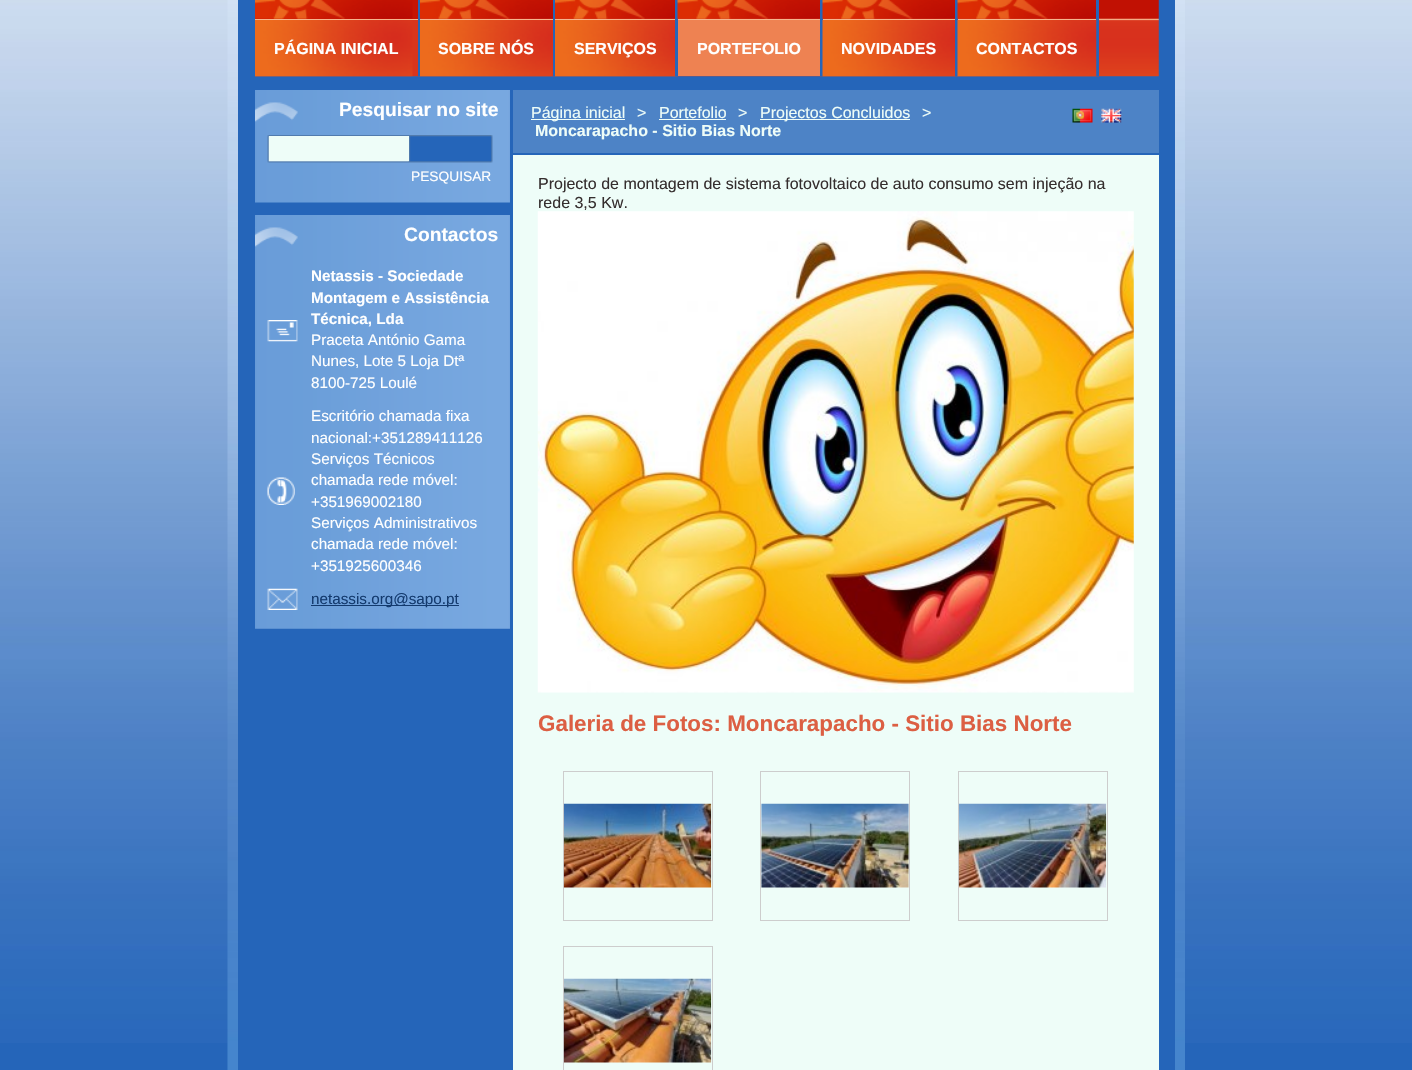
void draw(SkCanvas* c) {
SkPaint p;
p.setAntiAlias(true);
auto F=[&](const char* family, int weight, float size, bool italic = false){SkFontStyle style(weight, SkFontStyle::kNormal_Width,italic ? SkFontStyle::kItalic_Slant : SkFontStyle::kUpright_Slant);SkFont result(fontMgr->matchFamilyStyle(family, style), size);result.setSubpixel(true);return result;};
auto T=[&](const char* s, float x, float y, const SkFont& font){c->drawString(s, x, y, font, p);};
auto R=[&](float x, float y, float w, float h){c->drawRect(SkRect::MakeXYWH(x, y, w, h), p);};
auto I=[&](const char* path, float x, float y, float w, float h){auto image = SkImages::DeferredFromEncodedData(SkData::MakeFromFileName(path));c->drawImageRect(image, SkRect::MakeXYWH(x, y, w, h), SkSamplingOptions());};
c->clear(0xff2565b9);
I("1.png",0,0,1412,1043);
I("2.png",227,0,958,1070);
p.setColor(0xff2565b9);
R(238,0,937,1070);
I("3.png",255,0,904,77);
p.setColor(0xffc51403);
R(255,0,163,19);
I("4.png",255,0,158,19);
p.setColor(0xff2565b9);
R(418,0,3,76);
p.setColor(0xffd9351d);
R(412,20,6,56);
I("5.png",255,20,158,57);
p.setColor(0xfff6b58e);
R(255,19,163,1);
auto f1 = F("Liberation Sans",700,16);
p.setColor(0xffffffff);
T("PÁGINA INICIAL",274,54,f1);
I("6.png",420,0,133,19);
p.setColor(0xff2565b9);
R(553,0,3,76);
p.setColor(0xffd9351d);
R(552,20,1,56);
I("7.png",420,20,133,57);
p.setColor(0xfff6b58e);
R(420,19,133,1);
p.setColor(0xffffffff);
T("SOBRE NÓS",438,54,f1);
I("8.png",555,0,120,19);
p.setColor(0xff2565b9);
R(675,0,3,76);
I("9.png",555,20,120,57);
p.setColor(0xfff6b58e);
R(555,19,120,1);
p.setColor(0xffffffff);
T("SERVIÇOS",574,54,f1);
I("10.png",677,0,143,19);
p.setColor(0xff2565b9);
R(820,0,3,76);
p.setColor(0xffee8252);
R(678,20,142,56);
p.setColor(0xfff6b58e);
R(678,19,142,1);
p.setColor(0xffffffff);
T("PORTEFOLIO",697,54,f1);
I("11.png",822,0,133,19);
p.setColor(0xff2565b9);
R(955,0,3,76);
I("12.png",822,20,133,57);
p.setColor(0xfff6b58e);
R(823,19,132,1);
p.setColor(0xffffffff);
T("NOVIDADES",841,54,f1);
I("13.png",957,0,139,19);
p.setColor(0xff2565b9);
R(1096,0,3,76);
I("14.png",957,20,140,57);
p.setColor(0xfff6b58e);
R(958,19,138,1);
p.setColor(0xffffffff);
T("CONTACTOS",976,54,f1);
I("15.png",255,90,255,113);
I("16.png",255,102,43,20);
auto f2 = F("Liberation Sans",700,19.25);
T("Pesquisar no site",339,116,f2);
I("17.png",267,135,226,28);
p.setColor(0xffeefdf8);
R(269,136,140,25);
auto f3 = F("Liberation Sans",400,13.75);
p.setColor(0xffffffff);
T("PESQUISAR",411,181,f3);
I("18.png",255,215,255,414);
I("16.png",255,227,43,20);
T("Contactos",404,241,f2);
I("19.png",267,320,31,22);
auto f4 = F("Liberation Sans",700,15.25);
T("Netassis - Sociedade",311,281,f4);
T("Montagem e Assistência",311,303,f4);
T("Técnica, Lda",311,324,f4);
auto f5 = F("Liberation Sans",400,15.25);
T("Praceta António Gama",311,345,f5);
T("Nunes, Lote 5 Loja Dtª",311,366,f5);
T("8100-725 Loulé",311,388,f5);
I("20.png",267,477,28,28);
T("Escritório chamada fixa",311,421,f5);
T("nacional:+351289411126",311,443,f5);
T("Serviços Técnicos",311,464,f5);
T("chamada rede móvel:",311,485,f5);
T("+351969002180",311,507,f5);
T("Serviços Administrativos",311,528,f5);
T("chamada rede móvel:",311,549,f5);
T("+351925600346",311,571,f5);
I("21.png",267,588,31,22);
p.setColor(0xff133a6e);
R(311,605,148,1);
T("netassis.org@sapo.pt",311,604,f5);
p.setColor(0xff4d83c6);
R(513,90,646,63);
p.setColor(0xffeefdf8);
R(531,119,94,1);
auto f6 = F("Liberation Sans",400,16);
T("Página inicial",531,118,f6);
T(">",637,118,f6);
T("Portefolio",659,118,f6);
R(659,119,67,1);
T(">",738,118,f6);
R(760,119,150,1);
T("Projectos Concluidos",760,118,f6);
T(">",922,118,f6);
T("Moncarapacho - Sitio Bias Norte",535,136,f1);
I("22.png",1072,108,21,15);
I("23.png",1101,108,21,15);
R(513,155,646,915);
p.setColor(0xff352e2e);
T("Projecto de montagem de sistema fotovoltaico de auto consumo sem injeção na",538,189,f6);
T("rede 3,5 Kw.",538,208,f6);
I("24.png",537,211,597,482);
auto f7 = F("Liberation Sans",700,22.4);
p.setColor(0xffdc5f43);
T("Galeria de Fotos: Moncarapacho - Sitio Bias Norte",538,731,f7);
p.setStroke(true);
p.setStrokeWidth(1);
p.setColor(0xffcdcdcd);
c->drawRect(SkRect::MakeXYWH(563.5,771.5,149,149),p);
I("25.png",563,803,149,85);
c->drawRect(SkRect::MakeXYWH(760.5,771.5,149,149),p);
I("26.png",761,803,148,85);
c->drawRect(SkRect::MakeXYWH(958.5,771.5,149,149),p);
I("27.png",958,803,149,85);
c->drawRect(SkRect::MakeXYWH(563.5,946.5,149,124),p);
I("28.png",563,978,149,85);
}
